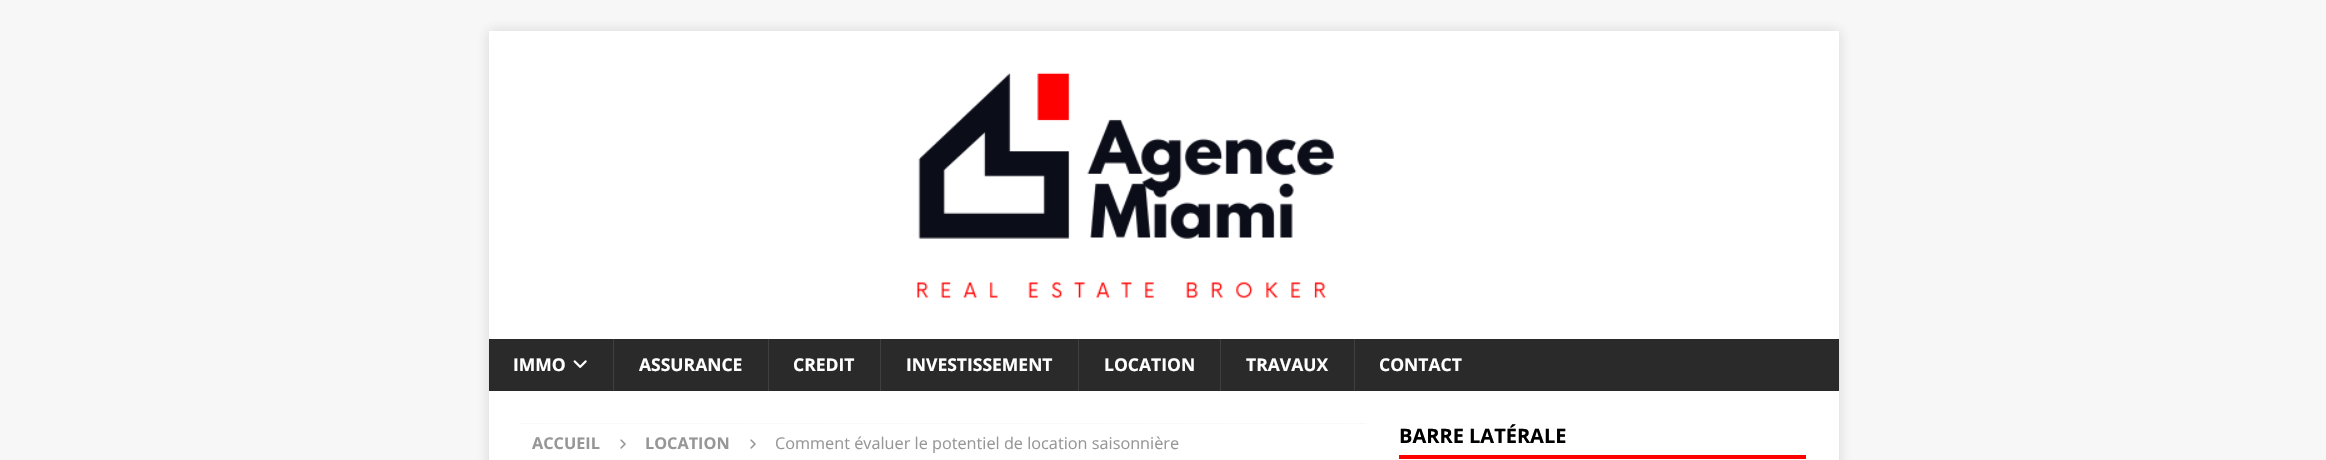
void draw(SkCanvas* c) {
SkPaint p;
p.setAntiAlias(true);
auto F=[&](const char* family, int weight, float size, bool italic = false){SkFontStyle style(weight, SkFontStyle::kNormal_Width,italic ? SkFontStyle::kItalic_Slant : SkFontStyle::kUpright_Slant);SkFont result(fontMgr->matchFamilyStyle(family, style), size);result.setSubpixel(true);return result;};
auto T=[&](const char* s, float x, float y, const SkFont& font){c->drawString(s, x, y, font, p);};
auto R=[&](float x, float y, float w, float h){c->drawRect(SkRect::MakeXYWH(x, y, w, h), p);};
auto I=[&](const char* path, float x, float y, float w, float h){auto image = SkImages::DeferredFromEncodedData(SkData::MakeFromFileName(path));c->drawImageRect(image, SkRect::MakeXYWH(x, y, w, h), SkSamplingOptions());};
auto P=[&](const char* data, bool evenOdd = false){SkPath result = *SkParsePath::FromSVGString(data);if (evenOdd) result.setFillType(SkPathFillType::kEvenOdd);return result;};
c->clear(0xfff7f7f7);
p.setColor(0x2b323232);
p.setMaskFilter(SkMaskFilter::MakeBlur(kNormal_SkBlurStyle, 6));
c->drawRect(SkRect::MakeXYWH(489,31,1350,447),p);
p.setMaskFilter(nullptr);
p.setColor(0xffffffff);
R(489,31,1350,308);
I("1.png",916,72,418,227);
p.setColor(0xff2a2a2a);
R(489,339,1350,52);
auto f1 = F("Open Sans",700,17.5);
p.setColor(0xffffffff);
T("IMMO",513,371,f1);
I("2.png",573,360,14,8);
p.setColor(0xff3f3f3f);
R(613,339,1,52);
p.setColor(0xffffffff);
T("ASSURANCE",639,371,f1);
p.setColor(0xff3f3f3f);
R(768,339,1,52);
p.setColor(0xffffffff);
T("CREDIT",793,371,f1);
p.setColor(0xff3f3f3f);
R(880,339,1,52);
p.setColor(0xffffffff);
T("INVESTISSEMENT",906,371,f1);
p.setColor(0xff3f3f3f);
R(1078,339,1,52);
p.setColor(0xffffffff);
T("LOCATION",1104,371,f1);
p.setColor(0xff3f3f3f);
R(1220,339,1,52);
p.setColor(0xffffffff);
T("TRAVAUX",1246,371,f1);
p.setColor(0xff3f3f3f);
R(1354,339,1,52);
p.setColor(0xffffffff);
T("CONTACT",1379,371,f1);
R(489,391,1350,69);
c->save();
c->clipRect(SkRect::MakeXYWH(520,423,848,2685));
p.setStroke(true);
p.setStrokeWidth(1.2);
p.setColor(0xffebebeb);
p.setPathEffect(SkDashPathEffect::Make({{1.25f,1.25f}}, 0));
c->drawPath(P("M520 423h847.5"),p);
p.setPathEffect(nullptr);
c->restore();
auto f2 = F("Open Sans",700,16.25);
p.setStroke(false);
p.setColor(0xff979797);
T("ACCUEIL",532,449,f2);
I("3.png",620,439,6,10);
T("LOCATION",645,449,f2);
I("3.png",750,439,6,10);
auto f3 = F("Open Sans",400,16.25);
T("Comment évaluer le potentiel de location saisonnière",775,449,f3);
p.setColor(0xffff0000);
R(1399,455,407,4);
auto f4 = F("Open Sans",700,20);
p.setColor(0xff000000);
T("BARRE LATÉRALE",1399,443,f4);
}
